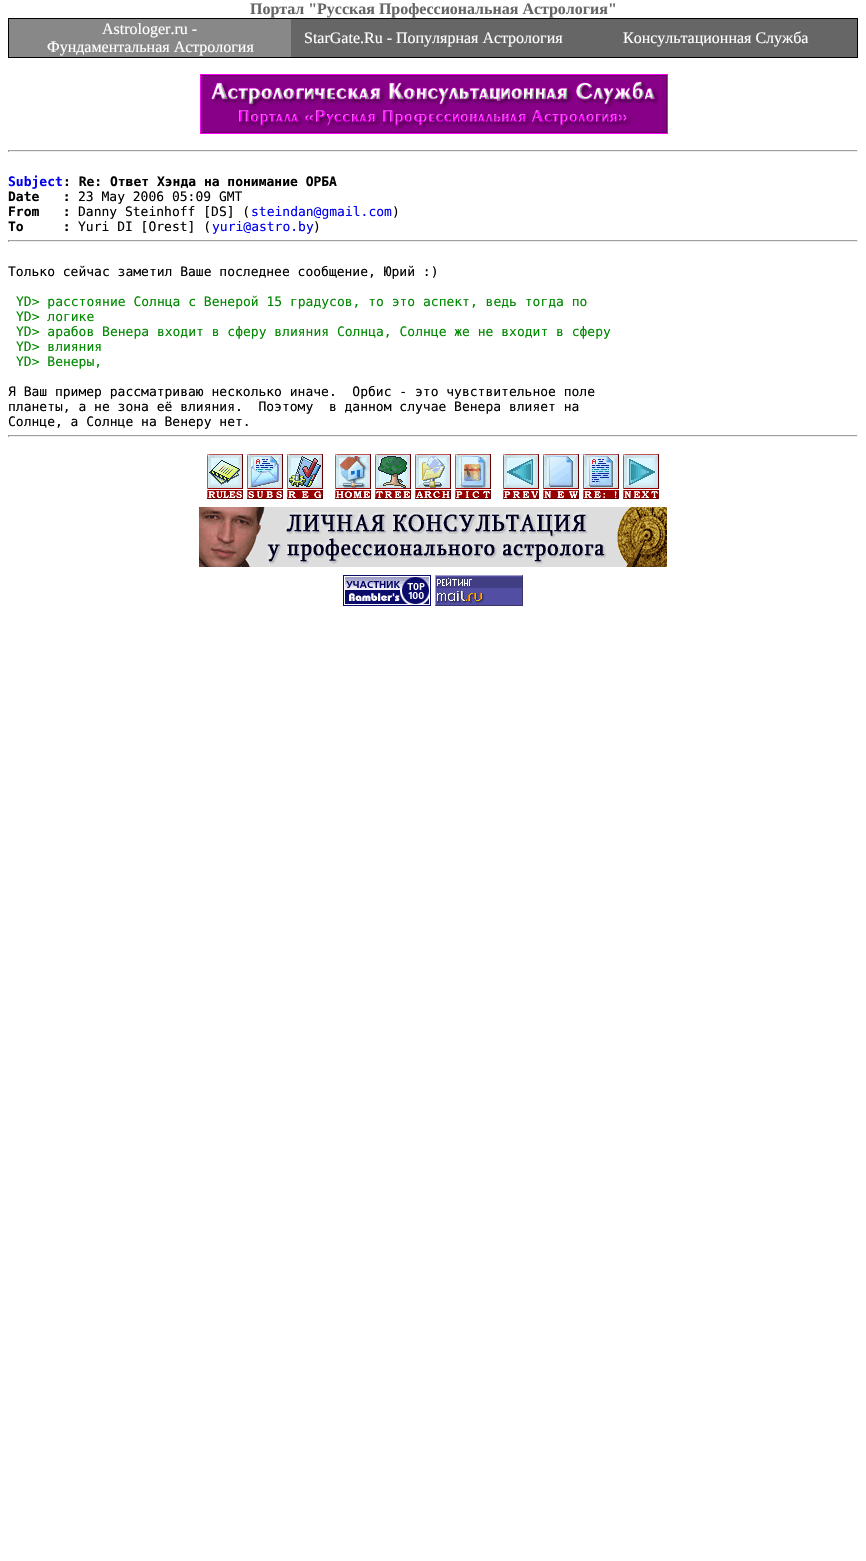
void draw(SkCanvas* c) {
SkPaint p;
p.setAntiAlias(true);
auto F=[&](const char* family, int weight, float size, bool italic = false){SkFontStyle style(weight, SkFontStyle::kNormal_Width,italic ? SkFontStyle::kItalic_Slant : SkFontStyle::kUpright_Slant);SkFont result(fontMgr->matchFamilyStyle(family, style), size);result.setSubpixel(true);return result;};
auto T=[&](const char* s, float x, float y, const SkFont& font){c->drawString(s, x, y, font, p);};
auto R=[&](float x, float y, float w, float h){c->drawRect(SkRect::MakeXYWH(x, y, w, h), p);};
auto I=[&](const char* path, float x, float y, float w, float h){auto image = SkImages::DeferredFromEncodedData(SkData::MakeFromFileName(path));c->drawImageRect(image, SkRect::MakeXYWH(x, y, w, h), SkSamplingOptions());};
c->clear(0xffffffff);
auto f1 = F("Liberation Serif",700,16);
p.setColor(0xff666666);
T("Портал \"Русская Профессиональная Астрология\"",250,14,f1);
p.setColor(0xff000000);
R(8,18,850,40);
p.setColor(0xff666666);
R(291,19,566,38);
p.setColor(0xff888888);
R(9,19,282,38);
auto f2 = F("Liberation Serif",400,16);
p.setColor(0xffffffff);
T("Astrologer.ru -",102,34,f2);
T("Фундаментальная Астрология",47,52,f2);
T("StarGate.Ru - Популярная Астрология",304,43,f2);
T("Консультационная Служба",623,43,f2);
I("1.png",200,74,468,60);
p.setColor(0xff9f9f9f);
R(8,150,850,1);
p.setColor(0xffeeeeee);
R(857,150,1,2);
R(8,151,850,1);
p.setColor(0xff9f9f9f);
R(8,150,1,2);
auto f3 = F("DejaVu Sans Mono",700,13);
p.setColor(0xff0000ee);
T("Subject",8,186,f3);
p.setColor(0xff000000);
T(": Re: Ответ Хэнда на понимание ОРБА",63,186,f3);
T("Date   :",8,201,f3);
auto f4 = F("DejaVu Sans Mono",400,13);
T("23 May 2006 05:09 GMT",78,201,f4);
T("From   :",8,216,f3);
T("Danny Steinhoff [DS] (",78,216,f4);
p.setColor(0xff0000ee);
T("steindan@gmail.com",251,216,f4);
p.setColor(0xff000000);
T(")",392,216,f4);
T("To     :",8,231,f3);
T("Yuri DI [Orest] (",78,231,f4);
p.setColor(0xff0000ee);
T("yuri@astro.by",212,231,f4);
p.setColor(0xff000000);
T(")",313,231,f4);
p.setColor(0xff9f9f9f);
R(8,240,850,1);
p.setColor(0xffeeeeee);
R(857,240,1,2);
R(8,241,850,1);
p.setColor(0xff9f9f9f);
R(8,240,1,2);
p.setColor(0xff000000);
T("Только сейчас заметил Ваше последнее сообщение, Юрий :)",8,276,f4);
p.setColor(0xff008800);
T("YD> расстояние Солнца с Венерой 15 градусов, то это аспект, ведь тогда по",16,306,f4);
T("YD> логике",16,321,f4);
T("YD> арабов Венера входит в сферу влияния Солнца, Солнце же не входит в сферу",16,336,f4);
T("YD> влияния",16,351,f4);
T("YD> Венеры,",16,366,f4);
p.setColor(0xff000000);
T("Я Ваш пример рассматриваю несколько иначе.  Орбис - это чувствительное поле",8,396,f4);
T("планеты, а не зона её влияния.  Поэтому  в данном случае Венера влияет на",8,411,f4);
T("Солнце, а Солнце на Венеру нет.",8,426,f4);
p.setColor(0xff9f9f9f);
R(8,435,850,1);
p.setColor(0xffeeeeee);
R(857,435,1,2);
R(8,436,850,1);
p.setColor(0xff9f9f9f);
R(8,435,1,2);
I("2.png",207,454,36,45);
I("3.png",247,454,36,45);
I("4.png",287,454,36,45);
I("5.png",335,454,36,45);
I("6.png",375,454,36,45);
I("7.png",415,454,36,45);
I("8.png",455,454,36,45);
I("9.png",503,454,36,45);
I("10.png",543,454,36,45);
I("11.png",583,454,36,45);
I("12.png",623,454,36,45);
I("13.png",199,507,468,60);
I("14.png",343,575,88,31);
I("15.png",435,575,88,31);
}
